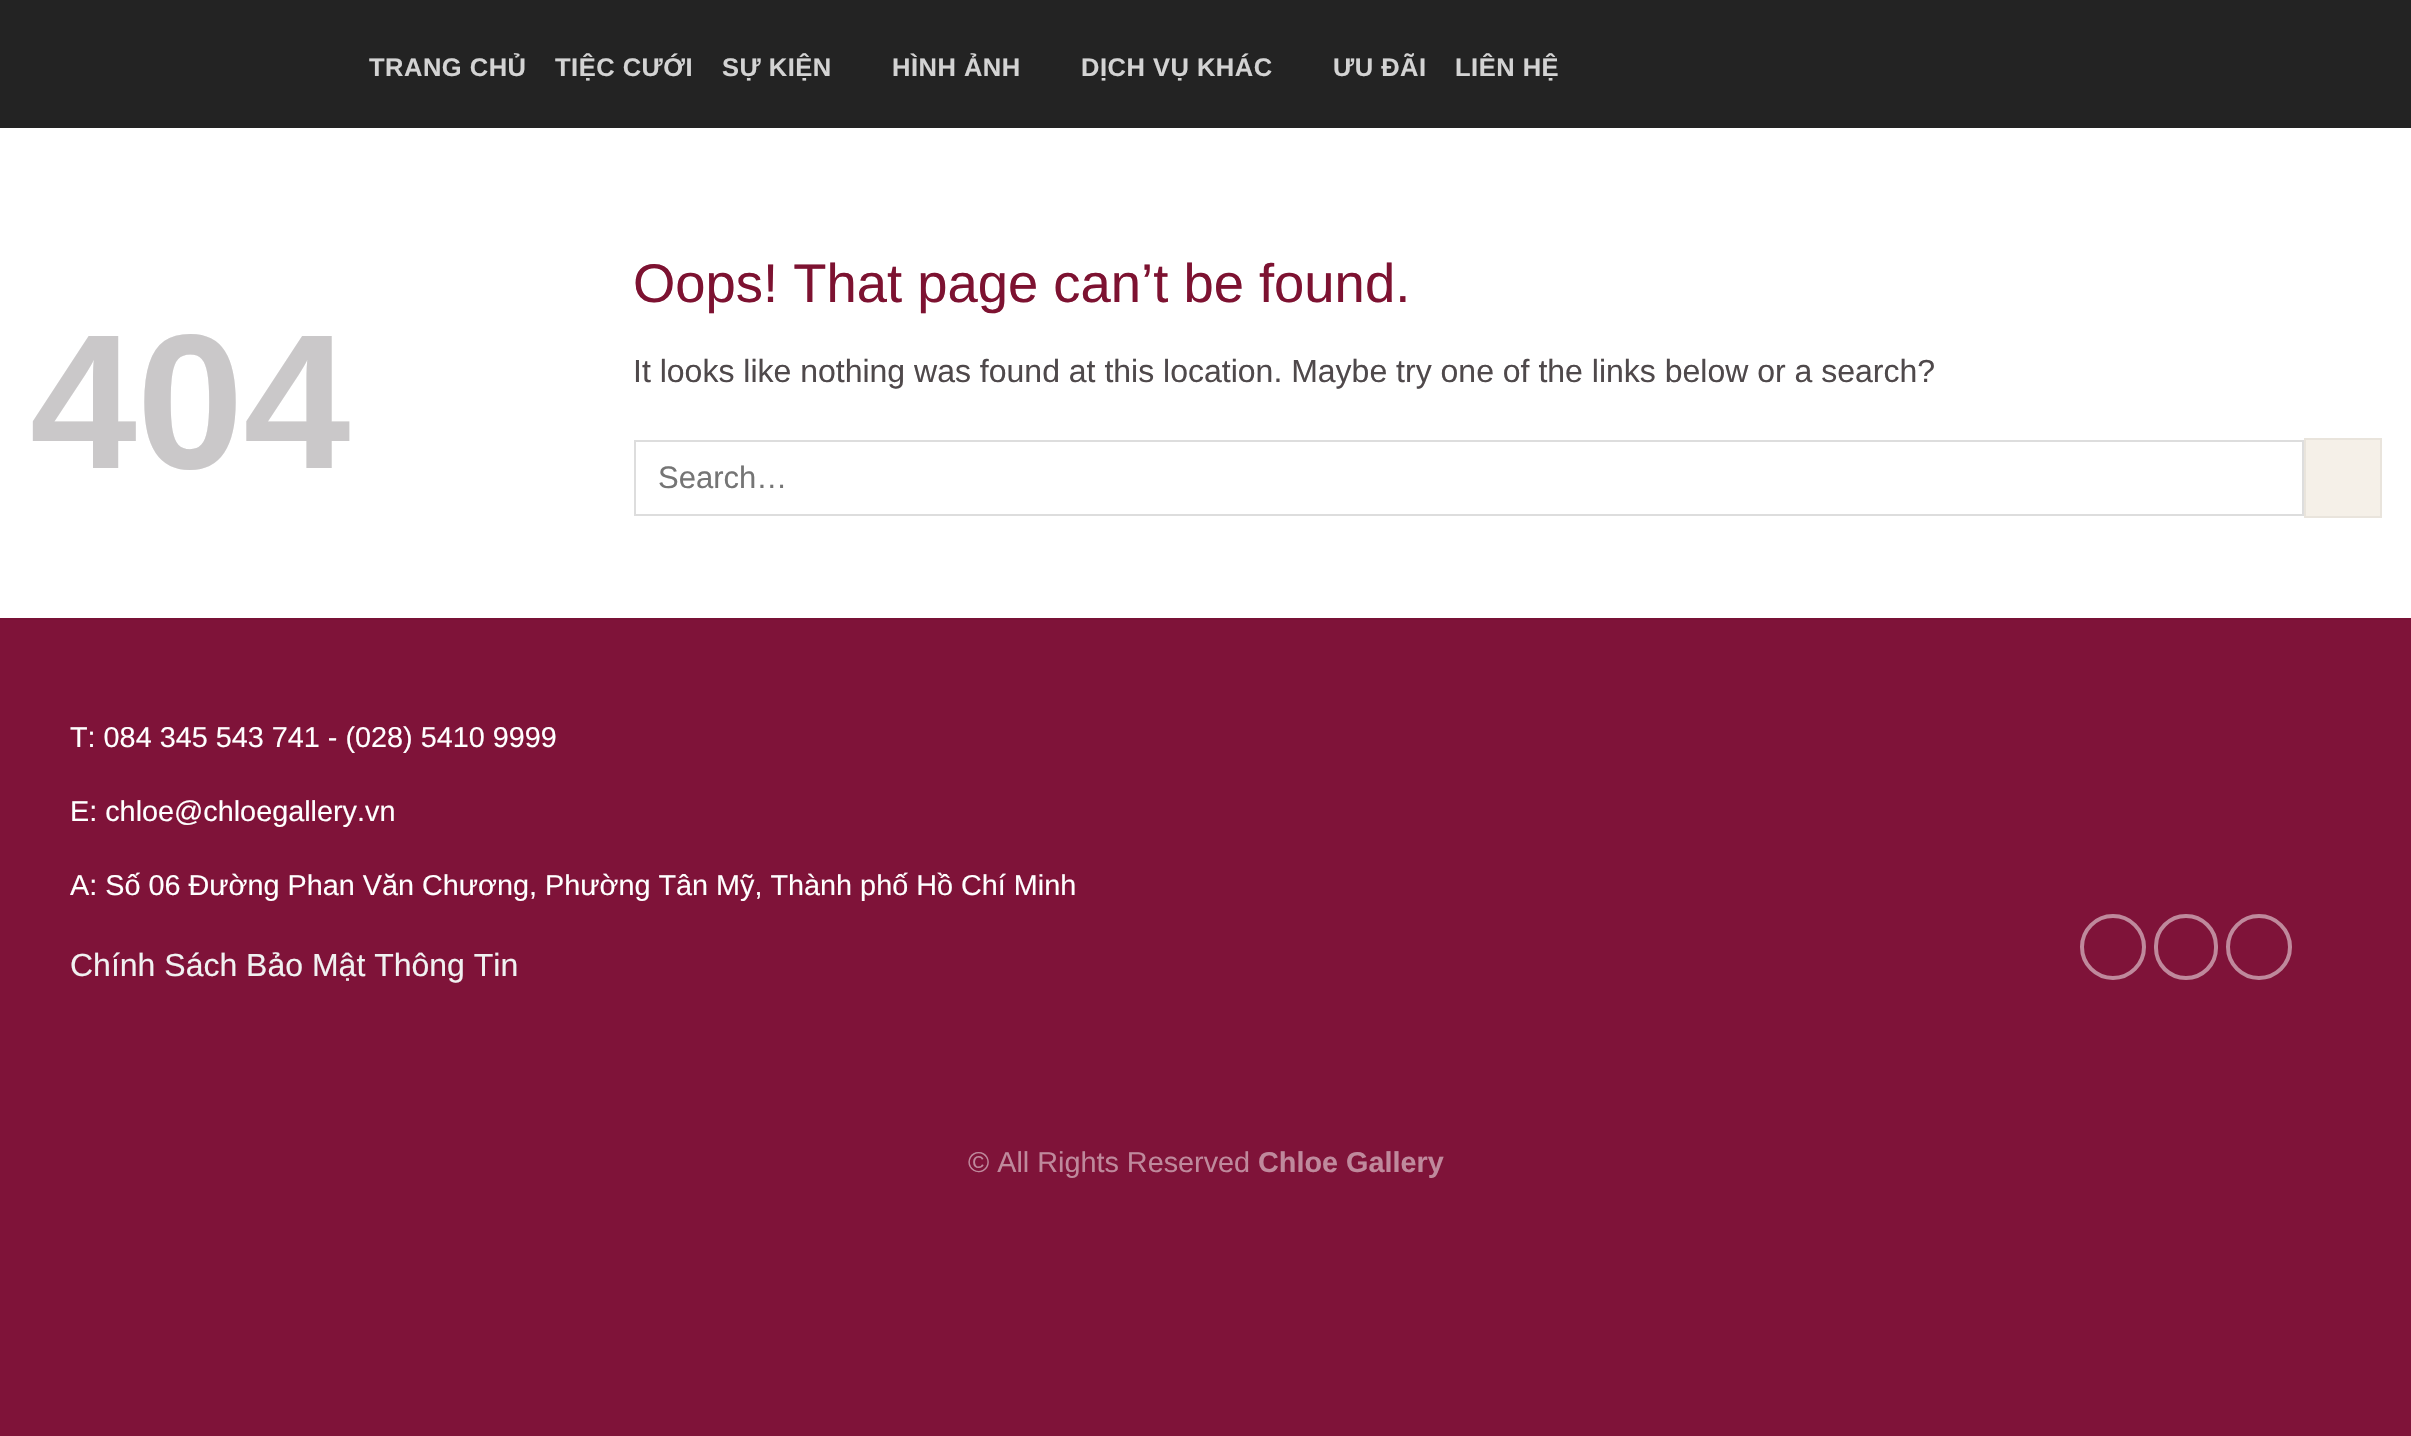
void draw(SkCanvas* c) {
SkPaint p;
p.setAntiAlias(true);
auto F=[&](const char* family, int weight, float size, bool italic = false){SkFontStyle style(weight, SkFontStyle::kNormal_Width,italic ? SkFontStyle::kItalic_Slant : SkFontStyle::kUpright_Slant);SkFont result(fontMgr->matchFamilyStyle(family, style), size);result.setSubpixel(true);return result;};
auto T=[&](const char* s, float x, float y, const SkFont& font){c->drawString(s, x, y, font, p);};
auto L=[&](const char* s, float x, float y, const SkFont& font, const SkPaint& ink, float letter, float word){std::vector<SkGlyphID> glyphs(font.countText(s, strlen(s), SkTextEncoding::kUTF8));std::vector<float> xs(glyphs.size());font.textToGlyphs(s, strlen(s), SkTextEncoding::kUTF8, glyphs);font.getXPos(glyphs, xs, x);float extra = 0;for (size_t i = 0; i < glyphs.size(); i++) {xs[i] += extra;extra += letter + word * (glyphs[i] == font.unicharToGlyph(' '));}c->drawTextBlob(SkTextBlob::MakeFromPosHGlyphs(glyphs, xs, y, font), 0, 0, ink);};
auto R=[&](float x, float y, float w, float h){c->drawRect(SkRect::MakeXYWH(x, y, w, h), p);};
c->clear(0xff7f1339);
p.setColor(0xffffffff);
R(0,128,2411,490);
p.setColor(0xff232323);
R(0,0,2411,128);
auto f1 = F("Liberation Sans",700,25.5);
p.setColor(0xffd3d3d3);
L("TRANG CHỦ",369,76,f1,p,.5,0);
L("TIỆC CƯỚI",555,76,f1,p,.5,0);
L("SỰ KIỆN",722,76,f1,p,.5,0);
L("HÌNH ẢNH",892,76,f1,p,.5,0);
L("DỊCH VỤ KHÁC",1081,76,f1,p,.5,0);
L("ƯU ĐÃI",1333,76,f1,p,.5,0);
L("LIÊN HỆ",1455,76,f1,p,.5,0);
auto f2 = F("Liberation Sans",700,192);
p.setColor(0xffcac8c9);
T("404",30,468,f2);
auto f3 = F("Liberation Sans",400,54.4);
p.setColor(0xff7d1231);
T("Oops! That page can’t be found.",633,302,f3);
auto f4 = F("Liberation Sans",400,32);
p.setColor(0xff4f494b);
T("It looks like nothing was found at this location. Maybe try one of the links below or a search?",633,382,f4);
p.setStroke(true);
p.setStrokeWidth(2);
p.setColor(0xffdddddd);
c->drawRect(SkRect::MakeXYWH(635,441,1668,74),p);
auto f5 = F("Liberation Sans",400,31);
p.setStroke(false);
p.setColor(0xff757575);
T("Search…",658,488,f5);
p.setColor(0xfff5f0e8);
c->drawRect(SkRect::MakeXYWH(2305,439,76,78),p);
p.setStroke(true);
p.setColor(0xffe9e4dc);
c->drawRect(SkRect::MakeXYWH(2305,439,76,78),p);
p.setStroke(false);
p.setColor(0xff791236);
R(0,618,2411,2);
auto f6 = F("Liberation Sans",400,28.8);
p.setColor(0xffffffff);
T("T: 084 345 543 741 - (028) 5410 9999",70,747,f6);
T("E: chloe@chloegallery.vn",70,821,f6);
T("A: Số 06 Đường Phan Văn Chương, Phường Tân Mỹ, Thành phố Hồ Chí Minh",70,895,f6);
p.setColor(0xfff1f1f1);
T("Chính Sách Bảo Mật Thông Tin",70,976,f4);
p.setStroke(true);
p.setStrokeWidth(4);
p.setColor(0xffbf899c);
c->drawCircle(2113,947,31,p);
c->drawRoundRect(SkRect::MakeXYWH(2156,916,60,62),30,30,p);
c->drawCircle(2259,947,31,p);
p.setStroke(false);
T("© All Rights Reserved",968,1172,f6);
auto f7 = F("Liberation Sans",700,28.8);
T("Chloe Gallery",1258,1172,f7);
}
